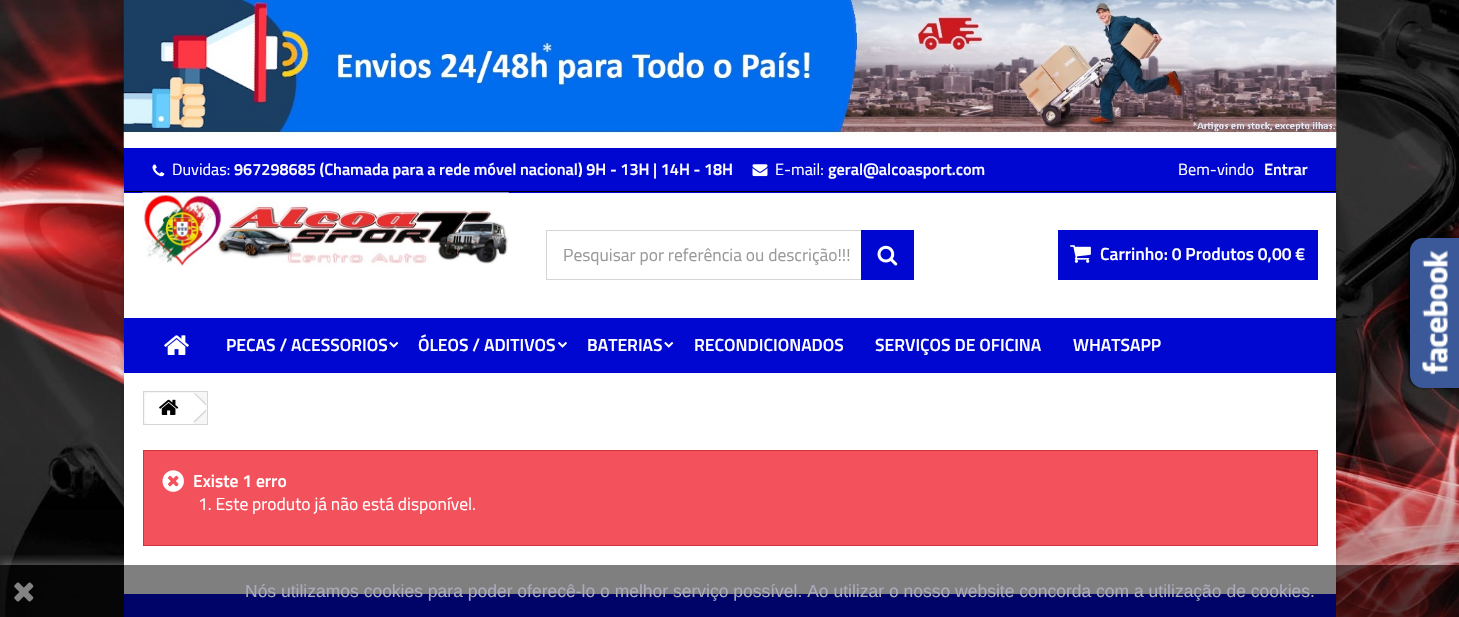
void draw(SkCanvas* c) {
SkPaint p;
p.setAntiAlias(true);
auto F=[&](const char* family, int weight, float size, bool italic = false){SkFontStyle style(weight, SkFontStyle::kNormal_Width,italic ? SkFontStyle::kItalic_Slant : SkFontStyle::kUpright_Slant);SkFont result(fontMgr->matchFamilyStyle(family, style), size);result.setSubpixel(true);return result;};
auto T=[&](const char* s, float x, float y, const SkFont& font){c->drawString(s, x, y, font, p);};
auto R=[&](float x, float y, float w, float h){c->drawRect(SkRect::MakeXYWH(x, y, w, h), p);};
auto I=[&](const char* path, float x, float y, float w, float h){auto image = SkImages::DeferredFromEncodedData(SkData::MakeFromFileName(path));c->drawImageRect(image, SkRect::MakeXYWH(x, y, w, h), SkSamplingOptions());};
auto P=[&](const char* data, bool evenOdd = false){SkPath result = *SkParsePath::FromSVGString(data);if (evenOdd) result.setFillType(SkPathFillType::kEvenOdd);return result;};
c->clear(0xffffffff);
I("1.png",0,0,1459,617);
p.setColor(0x33000000);
p.setMaskFilter(SkMaskFilter::MakeBlur(kNormal_SkBlurStyle, 2.5));
c->drawRect(SkRect::MakeXYWH(124,0,1212,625),p);
p.setMaskFilter(nullptr);
p.setColor(0xffffffff);
R(124,147,1212,447);
I("2.png",123,0,1214,148);
p.setColor(0xff0007d1);
R(124,148,1212,45);
p.setColor(0xff000000);
R(124,191,1212,1);
I("3.png",152,164,13,13);
auto f1 = F("Titillium Web",400,16.25);
p.setColor(0xffffffff);
T("Duvidas:",172,175,f1);
auto f2 = F("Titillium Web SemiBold",600,16.25);
T("967298685 (Chamada para a rede móvel nacional) 9H - 13H | 14H - 18H",234,175,f2);
I("4.png",752,164,16,13);
T("E-mail:",775,175,f1);
T("geral@alcoasport.com",828,175,f2);
T("Bem-vindo",1178,175,f1);
T("Entrar",1264,175,f2);
I("5.png",142,192,367,74);
p.setStroke(true);
p.setStrokeWidth(1);
p.setColor(0xffd6d4d4);
c->drawRect(SkRect::MakeXYWH(546.5,230.5,367,49),p);
auto f3 = F("Titillium Web",400,17.5);
p.setStroke(false);
p.setColor(0xff999999);
T("Pesquisar por referência ou descrição!!!",563,261,f3);
p.setColor(0xff0007d1);
R(861,230,53,50);
I("6.png",877,245,21,21);
R(1058,230,260,50);
I("7.png",1070,245,21,18);
auto f4 = F("Titillium Web SemiBold",600,17.5);
p.setColor(0xffffffff);
T("Carrinho: 0 Produtos 0,00 €",1100,260,f4);
p.setColor(0xff0007d1);
R(124,318,1212,55);
I("8.png",164,335,25,20);
p.setColor(0xffffffff);
T("PECAS / ACESSORIOS",226,351,f4);
I("9.png",389,342,10,6);
T("ÓLEOS / ADITIVOS",418,351,f4);
I("10.png",558,342,9,6);
T("BATERIAS",587,351,f4);
I("9.png",664,342,10,6);
T("RECONDICIONADOS",694,351,f4);
T("SERVIÇOS DE OFICINA",875,351,f4);
T("WHATSAPP",1073,351,f4);
p.setColor(0x80000000);
p.setMaskFilter(SkMaskFilter::MakeBlur(kNormal_SkBlurStyle, 1));
c->drawRoundRect(SkRect::MakeXYWH(1408,238,50,150),13,13,p);
p.setMaskFilter(nullptr);
p.setColor(0xff3b5998);
c->drawPath(P("M1423 238h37v150h-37c-7 0-13-6-13-13v-124c0-7 6-13 13-13z"),p);
I("11.png",1422,250,26,125);
p.setColor(0xfff6f6f6);
c->drawRect(SkRect::MakeXYWH(143.5,391.5,64,33),p);
p.setStroke(true);
p.setColor(0xffd6d4d4);
c->drawRect(SkRect::MakeXYWH(143.5,391.5,64,33),p);
p.setStroke(false);
p.setColor(0xffffffff);
c->drawPath(P("M149 393h44v31h-44c-2 0-4-2-4-4v-23c0-2 2-4 4-4z"),p);
c->save();
c->clipRect(SkRect::MakeXYWH(144,393,62,31));
c->drawPath(P("M195.5 393.5l12.5 12c1 1 1 3 0 3.5l-12.5 12.5c-1 1-2.5 1-3.5 0l-12.5-12.5c-1-.5-1-2.5 0-3.5l12.5-12c1-1 2.5-1 3.5 0z"),p);
c->restore();
I("12.png",159,399,20,16);
c->save();
c->clipRect(SkRect::MakeXYWH(144,393,62,31));
p.setColor(0xffd6d4d4);
c->drawPath(P("M194.5 392.5l14.5 14l-1 1l-14-14zm13.5 15l1 1l-14.5 14l-1-1z"),p);
c->restore();
p.setColor(0xfff3515c);
c->drawRect(SkRect::MakeXYWH(143.5,450.5,1174,95),p);
p.setStroke(true);
p.setColor(0xffd4323d);
c->drawRect(SkRect::MakeXYWH(143.5,450.5,1174,95),p);
I("13.png",162,470,22,22);
p.setStroke(false);
p.setColor(0xffffffff);
T("Existe 1 erro",193,487,f4);
T("1. Este produto já não está disponível.",198,510,f3);
p.setColor(0xff0007d1);
R(124,594,1212,23);
c->save();
c->clipRect(SkRect::MakeXYWH(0,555,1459,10));
p.setColor(0x80ffffff);
p.setMaskFilter(SkMaskFilter::MakeBlur(kNormal_SkBlurStyle, 6));
c->drawRect(SkRect::MakeXYWH(0,565,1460,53),p);
p.setMaskFilter(nullptr);
c->restore();
p.setColor(0x80000000);
R(0,565,1459,52);
I("14.png",14,582,20,20);
auto f5 = F("Liberation Sans",400,17.5);
p.setColor(0xffaaaabb);
T("Nós utilizamos cookies para poder oferecê-lo o melhor serviço possível. Ao utilizar o nosso website concorda com a utilização de cookies.",245,597,f5);
}
